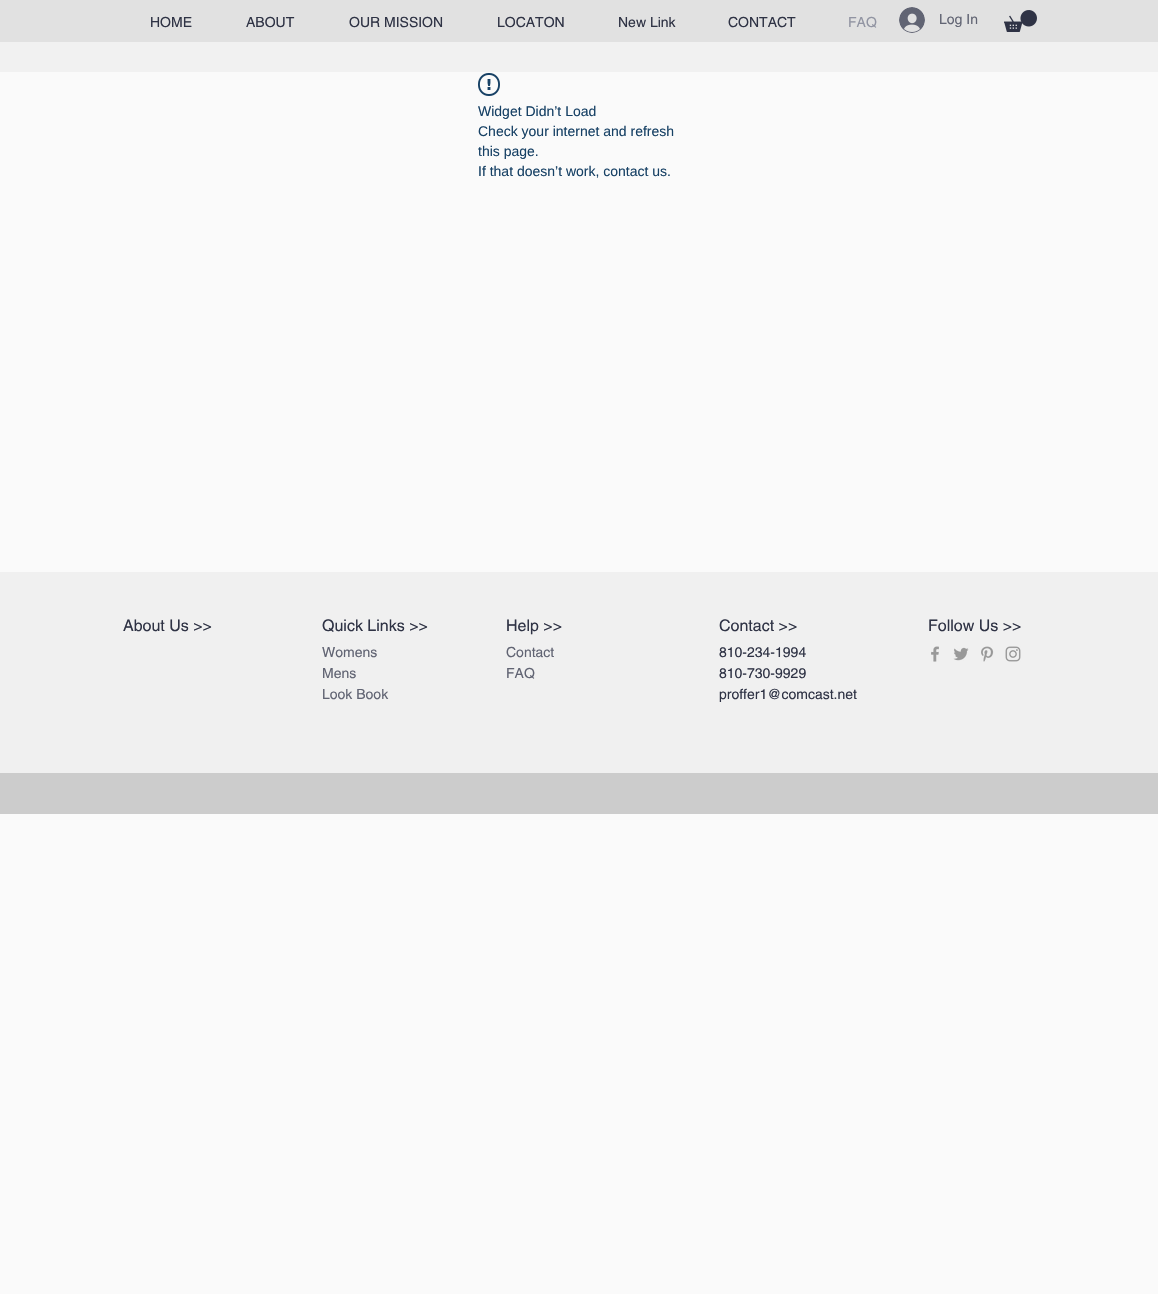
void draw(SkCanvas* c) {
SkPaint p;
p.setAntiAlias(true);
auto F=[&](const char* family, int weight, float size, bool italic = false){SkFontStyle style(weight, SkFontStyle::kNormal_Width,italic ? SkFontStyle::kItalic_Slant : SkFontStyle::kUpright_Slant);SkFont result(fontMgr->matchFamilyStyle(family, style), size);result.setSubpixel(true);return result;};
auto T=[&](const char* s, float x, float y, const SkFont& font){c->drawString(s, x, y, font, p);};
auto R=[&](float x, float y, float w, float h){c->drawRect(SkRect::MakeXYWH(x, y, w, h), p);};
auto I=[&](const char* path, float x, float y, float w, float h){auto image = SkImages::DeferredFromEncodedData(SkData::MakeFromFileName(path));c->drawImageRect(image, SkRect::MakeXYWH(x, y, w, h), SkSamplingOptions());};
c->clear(0xfffafafa);
p.setColor(0xffe1e1e1);
R(0,0,1158,42);
auto f1 = F("helvetica",400,14);
p.setColor(0xff2f3345);
T("HOME",150,27,f1);
T("ABOUT",246,27,f1);
T("OUR MISSION",349,27,f1);
T("LOCATON",497,27,f1);
T("New Link",618,27,f1);
T("CONTACT",728,27,f1);
p.setColor(0xff9194a2);
T("FAQ",848,27,f1);
I("1.png",899,7,26,26);
p.setColor(0xff616473);
T("Log In",939,24,f1);
I("2.png",1004,10,33,22);
p.setColor(0xfff1f1f1);
R(0,42,1158,30);
I("3.png",478,73,22,23);
auto f2 = F("Liberation Sans",400,14);
p.setColor(0xff174165);
T("Widget Didn’t Load",478,116,f2);
T("Check your internet and refresh",478,136,f2);
T("this page.",478,156,f2);
T("If that doesn’t work, contact us.",478,176,f2);
p.setColor(0xfff0f0f0);
R(0,572,1158,201);
auto f3 = F("helvetica",400,16);
p.setColor(0xff2f3345);
T("About Us >>",123,631,f3);
T("Quick Links >>",322,631,f3);
T("Help >>",506,631,f3);
T("Contact >>",719,631,f3);
T("Follow Us >>",928,631,f3);
p.setColor(0xff616473);
T("Womens",322,657,f1);
T("Mens",322,678,f1);
T("Look Book",322,699,f1);
T("Contact",506,657,f1);
T("FAQ",506,678,f1);
p.setColor(0xff2f3345);
T("810-234-1994",719,657,f1);
T("810-730-9929",719,678,f1);
T("proffer1@comcast.net",719,699,f1);
I("4.png",931,646,8,16);
I("5.png",953,647,16,14);
I("6.png",981,646,13,16);
I("7.png",1005,646,16,16);
p.setColor(0xffcccccc);
R(0,773,1158,41);
}
